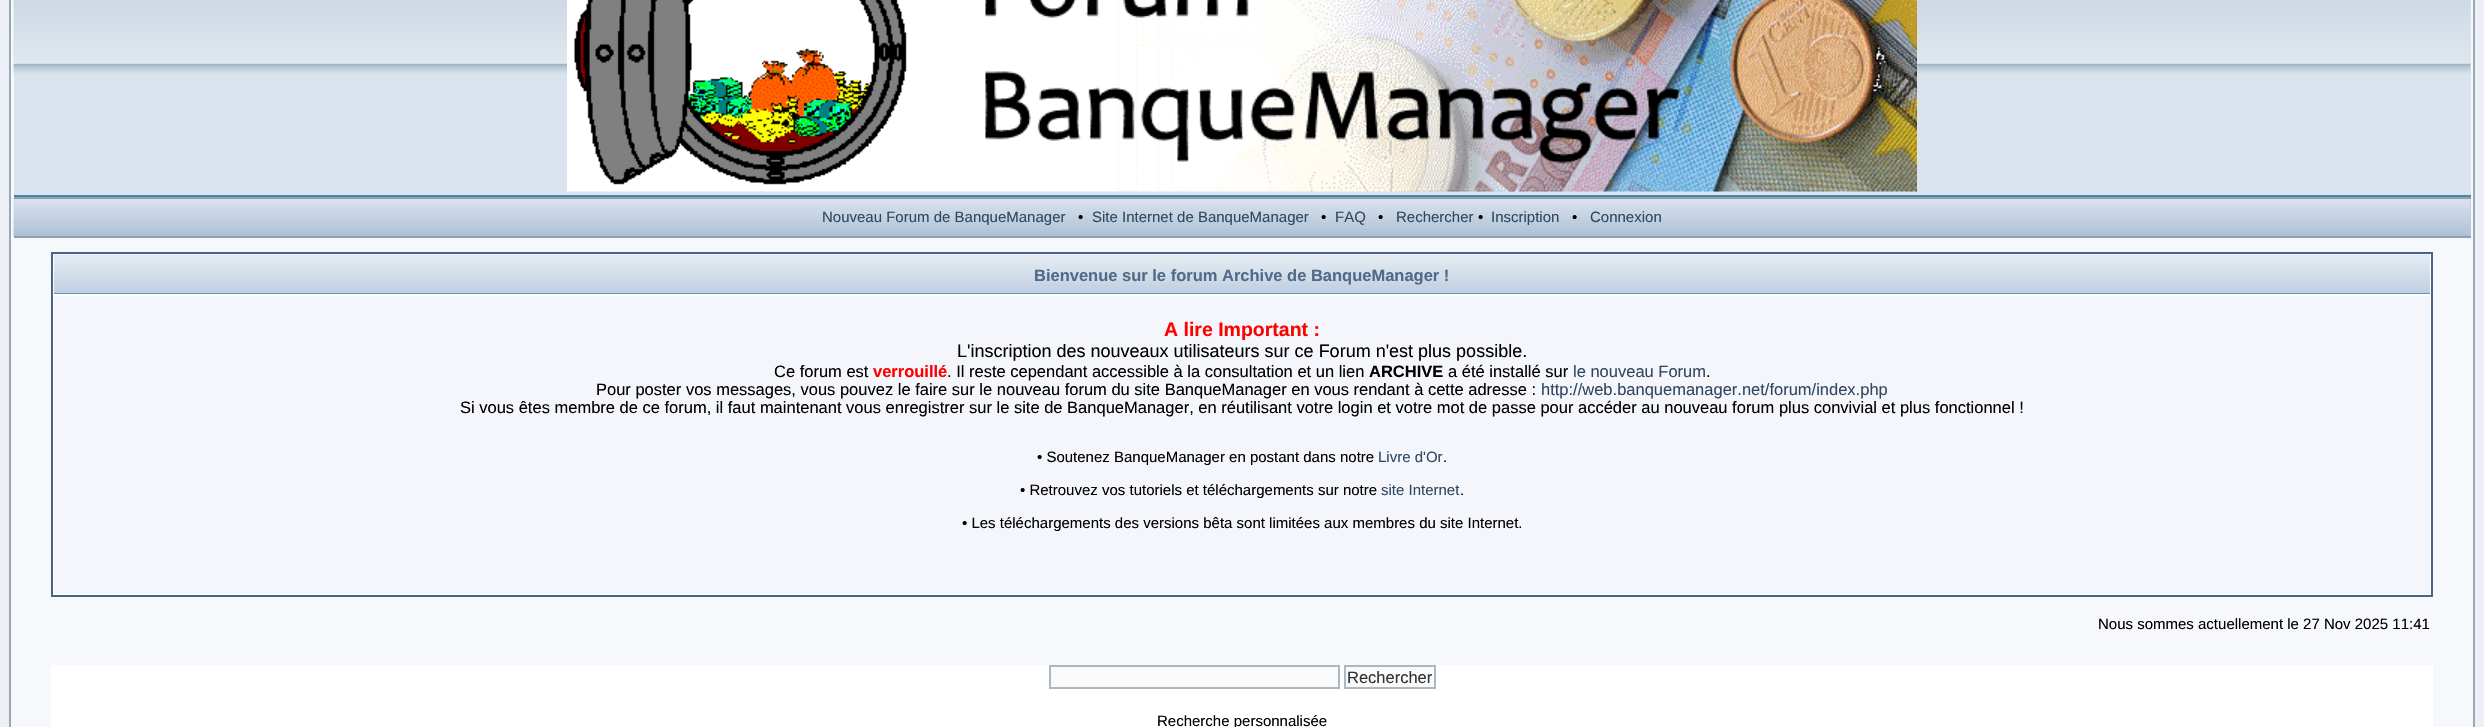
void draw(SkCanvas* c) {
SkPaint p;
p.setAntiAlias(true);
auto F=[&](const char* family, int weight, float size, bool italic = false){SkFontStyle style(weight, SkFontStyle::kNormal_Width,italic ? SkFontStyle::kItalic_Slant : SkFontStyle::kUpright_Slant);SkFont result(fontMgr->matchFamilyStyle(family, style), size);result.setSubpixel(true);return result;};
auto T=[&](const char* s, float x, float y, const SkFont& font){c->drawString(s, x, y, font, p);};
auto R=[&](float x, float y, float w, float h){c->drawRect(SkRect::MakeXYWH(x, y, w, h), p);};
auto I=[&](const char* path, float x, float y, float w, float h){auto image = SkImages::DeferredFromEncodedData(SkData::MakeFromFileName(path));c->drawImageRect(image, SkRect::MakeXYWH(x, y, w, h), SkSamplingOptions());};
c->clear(0xffecf0f6);
p.setColor(0xfff7f8fc);
c->drawRect(SkRect::MakeXYWH(10,-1,2464,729),p);
p.setStroke(true);
p.setStrokeWidth(2);
p.setColor(0xff98aab1);
c->drawRect(SkRect::MakeXYWH(10,-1,2464,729),p);
p.setStroke(false);
p.setColor(0xff4787a7);
R(14,195,2457,2);
p.setColor(0xffdbe3ee);
R(14,0,2457,195);
I("1.png",13,0,2458,75);
I("2.png",567,0,1350,192);
p.setColor(0xffb0c4d8);
R(2470,199,1,37);
I("3.png",13,197,2458,40);
p.setColor(0xff91a0ae);
R(14,197,2457,2);
R(14,236,2457,2);
auto f1 = F("Liberation Sans",400,15);
p.setColor(0xff32475f);
T("Nouveau Forum de BanqueManager",822,222,f1);
p.setColor(0xff000000);
T("•",1078,222,f1);
p.setColor(0xff32475f);
T("Site Internet de BanqueManager",1092,222,f1);
p.setColor(0xff000000);
T("•",1321,222,f1);
p.setColor(0xff32475f);
T("FAQ",1335,222,f1);
p.setColor(0xff000000);
T("•",1378,222,f1);
p.setColor(0xff32475f);
T("Rechercher",1396,222,f1);
p.setColor(0xff000000);
T("•",1478,222,f1);
p.setColor(0xff32475f);
T("Inscription",1491,222,f1);
p.setColor(0xff000000);
T("•",1572,222,f1);
p.setColor(0xff32475f);
T("Connexion",1590,222,f1);
p.setColor(0xffffffff);
c->drawRect(SkRect::MakeXYWH(52,253,2380,343),p);
p.setStroke(true);
p.setColor(0xff486386);
c->drawRect(SkRect::MakeXYWH(52,253,2380,343),p);
p.setStroke(false);
p.setColor(0xff006699);
R(54,293,2376,1);
I("4.png",54,254,2376,40);
auto f2 = F("Liberation Sans",700,16.5);
p.setColor(0xff516a88);
T("Bienvenue sur le forum Archive de BanqueManager !",1034,281,f2);
p.setColor(0xfff4f6fb);
R(54,296,2376,298);
auto f3 = F("Liberation Sans",700,19.5);
p.setColor(0xffff0000);
T("A lire Important :",1164,336,f3);
auto f4 = F("Liberation Sans",400,18);
p.setColor(0xff000000);
T("L'inscription des nouveaux utilisateurs sur ce Forum n'est plus possible.",957,357,f4);
auto f5 = F("Liberation Sans",400,16.5);
T("Ce forum est",774,377,f5);
p.setColor(0xffff0000);
T("verrouillé",873,377,f2);
p.setColor(0xff000000);
T(". Il reste cependant accessible à la consultation et un lien",947,377,f5);
T("ARCHIVE",1369,377,f2);
T("a été installé sur",1448,377,f5);
p.setColor(0xff32475f);
T("le nouveau Forum",1573,377,f5);
p.setColor(0xff000000);
T(".",1706,377,f5);
T("Pour poster vos messages, vous pouvez le faire sur le nouveau forum du site BanqueManager en vous rendant à cette adresse :",596,395,f5);
p.setColor(0xff32475f);
T("http://web.banquemanager.net/forum/index.php",1541,395,f5);
p.setColor(0xff000000);
T("Si vous êtes membre de ce forum, il faut maintenant vous enregistrer sur le site de BanqueManager, en réutilisant votre login et votre mot de passe pour accéder au nouveau forum plus convivial et plus fonctionnel !",460,413,f5);
T("• Soutenez BanqueManager en postant dans notre",1037,462,f1);
p.setColor(0xff32475f);
T("Livre d'Or",1378,462,f1);
p.setColor(0xff000000);
T(".",1443,462,f1);
T("• Retrouvez vos tutoriels et téléchargements sur notre",1020,495,f1);
p.setColor(0xff32475f);
T("site Internet",1381,495,f1);
p.setColor(0xff000000);
T(".",1460,495,f1);
T("• Les téléchargements des versions bêta sont limitées aux membres du site Internet.",962,528,f1);
T("Nous sommes actuellement le 27 Nov 2025 11:41",2098,629,f1);
p.setColor(0xffffffff);
R(51,665,2382,62);
p.setColor(0xfffafafa);
c->drawRect(SkRect::MakeXYWH(1050,666,289,22),p);
p.setStroke(true);
p.setColor(0xffa9b8c2);
c->drawRect(SkRect::MakeXYWH(1050,666,289,22),p);
p.setStroke(false);
p.setColor(0xfffafafa);
c->drawRect(SkRect::MakeXYWH(1345,666,90,22),p);
p.setStroke(true);
p.setColor(0xffa9b8c2);
c->drawRect(SkRect::MakeXYWH(1345,666,90,22),p);
p.setStroke(false);
p.setColor(0xff333333);
T("Rechercher",1347,683,f5);
p.setColor(0xff000000);
T("Recherche personnalisée",1157,726,f1);
}
